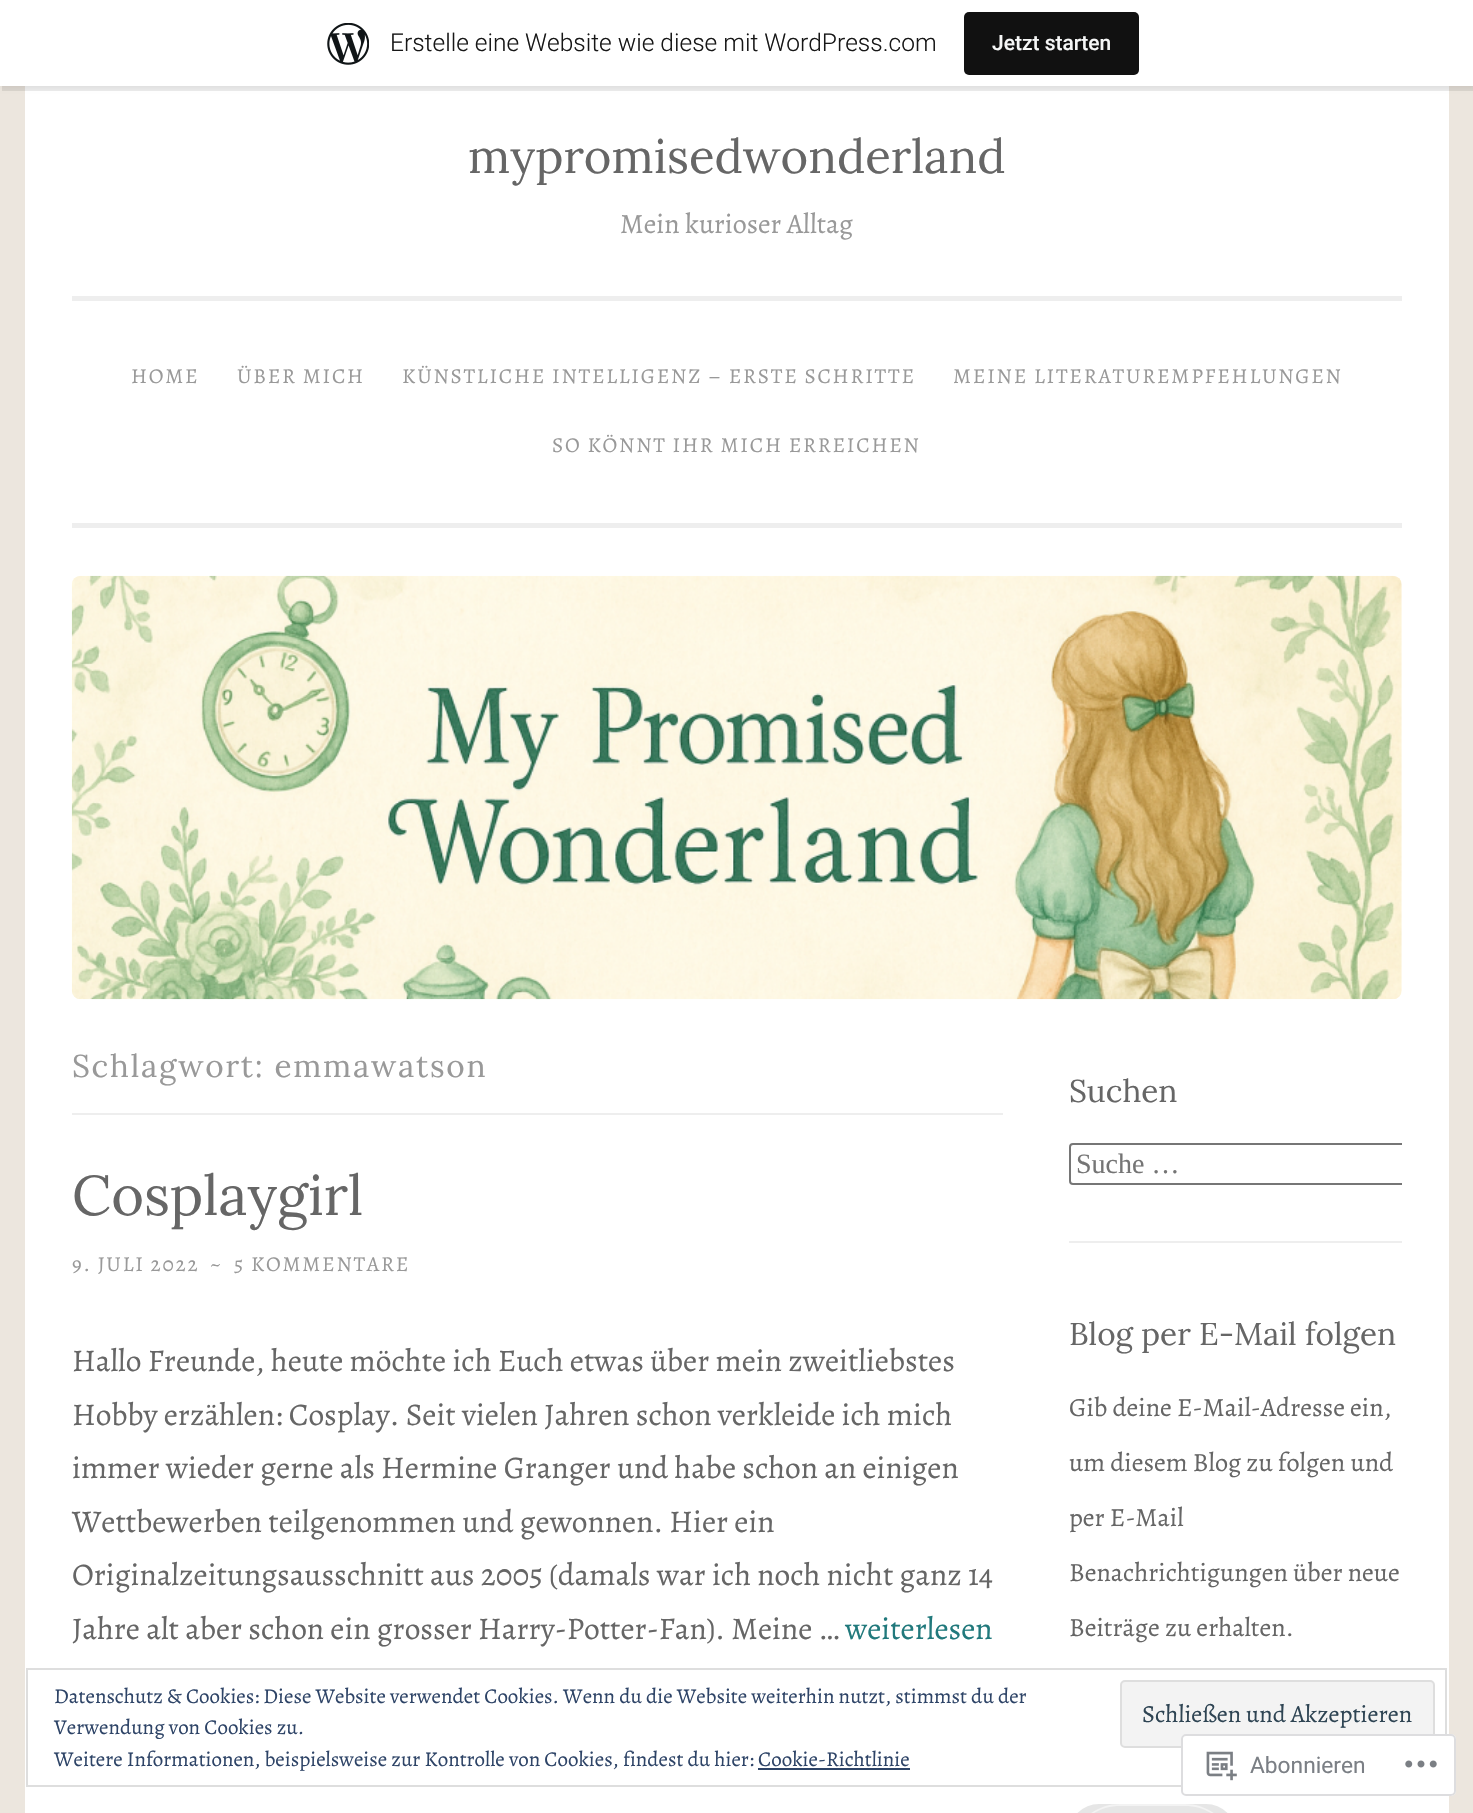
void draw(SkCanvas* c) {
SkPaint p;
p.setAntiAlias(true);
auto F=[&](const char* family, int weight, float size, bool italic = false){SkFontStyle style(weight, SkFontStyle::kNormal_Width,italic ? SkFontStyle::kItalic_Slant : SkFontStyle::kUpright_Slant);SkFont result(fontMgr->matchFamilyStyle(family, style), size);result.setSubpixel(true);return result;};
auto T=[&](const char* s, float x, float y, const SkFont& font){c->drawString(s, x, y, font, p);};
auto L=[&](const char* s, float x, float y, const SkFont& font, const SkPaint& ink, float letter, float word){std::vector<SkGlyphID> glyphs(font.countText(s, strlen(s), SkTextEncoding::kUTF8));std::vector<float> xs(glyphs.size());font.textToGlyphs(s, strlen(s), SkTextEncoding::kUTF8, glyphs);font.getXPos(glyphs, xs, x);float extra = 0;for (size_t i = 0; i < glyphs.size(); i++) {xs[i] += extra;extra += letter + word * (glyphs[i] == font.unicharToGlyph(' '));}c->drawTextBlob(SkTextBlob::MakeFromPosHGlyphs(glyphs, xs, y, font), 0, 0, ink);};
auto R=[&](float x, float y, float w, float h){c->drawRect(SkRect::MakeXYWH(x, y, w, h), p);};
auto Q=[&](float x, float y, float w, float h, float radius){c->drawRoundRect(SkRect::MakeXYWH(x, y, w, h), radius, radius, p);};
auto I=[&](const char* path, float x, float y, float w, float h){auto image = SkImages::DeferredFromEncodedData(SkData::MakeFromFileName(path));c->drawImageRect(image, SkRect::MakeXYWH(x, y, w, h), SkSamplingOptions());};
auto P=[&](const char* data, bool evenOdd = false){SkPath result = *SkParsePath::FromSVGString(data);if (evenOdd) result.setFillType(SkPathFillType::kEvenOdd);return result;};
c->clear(0xffece6de);
p.setColor(0xffffffff);
R(25,86,1424,1727);
p.setColor(0x0d000000);
p.setMaskFilter(SkMaskFilter::MakeBlur(kNormal_SkBlurStyle, 2));
c->drawRect(SkRect::MakeXYWH(0,2,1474,86),p);
p.setMaskFilter(nullptr);
p.setColor(0x14000000);
c->drawPath(P("M2 86v5h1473v-86h-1v81z"),p);
p.setColor(0xffffffff);
R(0,0,1473,86);
I("1.png",327,23,42,42);
auto f1 = F("Roboto",300,24.5);
p.setColor(0xff171717);
T("Erstelle eine Website wie diese mit WordPress.com",390,51,f1);
p.setColor(0xff111111);
Q(964,12,175,63,5);
auto f2 = F("Roboto",500,21);
p.setColor(0xfff6f7f7);
T("Jetzt starten",992,50,f2);
p.setColor(0xffeeeeee);
R(72,523,1330,5);
auto f3 = F("Lora",400,47.25);
p.setColor(0xff666666);
T("mypromisedwonderland",468,173,f3);
auto f4 = F("Alegreya",400,28);
p.setColor(0xff999999);
T("Mein kurioser Alltag",620,233,f4);
p.setColor(0xffeeeeee);
R(72,296,1330,5);
auto f5 = F("Alegreya",400,21.3);
p.setColor(0xff999999);
L("HOME",131,383,f5,p,1.75,0);
L("ÜBER MICH",237,383,f5,p,1.75,0);
L("KÜNSTLICHE INTELLIGENZ – ERSTE SCHRITTE",402,383,f5,p,1.75,0);
L("MEINE LITERATUREMPFEHLUNGEN",953,383,f5,p,1.75,0);
L("SO KÖNNT IHR MICH ERREICHEN",552,452,f5,p,1.75,0);
I("2.png",71,575,1331,425);
p.setColor(0xffeeeeee);
R(72,1113,931,2);
auto f6 = F("Lora",400,31.5);
p.setColor(0xff999999);
L("Schlagwort: emmawatson",72,1077,f6,p,1.75,0);
auto f7 = F("Lora",400,56);
p.setColor(0xff666666);
T("Cosplaygirl",72,1215,f7);
p.setColor(0xff999999);
L("9. JULI 2022",72,1271,f5,p,1.75,0);
L("~",210,1271,f5,p,1.75,0);
L("5 KOMMENTARE",234,1271,f5,p,1.75,0);
auto f8 = F("Alegreya",400,31.5);
p.setColor(0xff666666);
T("Hallo Freunde, heute möchte ich Euch etwas über mein zweitliebstes",72,1371,f8);
T("Hobby erzählen: Cosplay. Seit vielen Jahren schon verkleide ich mich",72,1425,f8);
T("immer wieder gerne als Hermine Granger und habe schon an einigen",72,1478,f8);
T("Wettbewerben teilgenommen und gewonnen. Hier ein",72,1532,f8);
T("Originalzeitungsausschnitt aus 2005 (damals war ich noch nicht ganz 14",72,1585,f8);
T("Jahre alt aber schon ein grosser Harry-Potter-Fan). Meine …",72,1639,f8);
p.setColor(0xff21797c);
T("weiterlesen",845,1639,f8);
p.setColor(0xffeeeeee);
R(1069,1241,333,2);
p.setColor(0xff666666);
T("Suchen",1069,1102,f6);
c->save();
c->clipRect(SkRect::MakeXYWH(1069,1047,333,194));
p.setStroke(true);
p.setStrokeWidth(2);
p.setColor(0xff767676);
c->drawRoundRect(SkRect::MakeXYWH(1070,1144,362,40),3,3,p);
c->restore();
auto f9 = F("Liberation Serif",400,28);
p.setStroke(false);
p.setColor(0xff757575);
T("Suche …",1076,1173,f9);
p.setColor(0xff666666);
T("Blog per E-Mail folgen",1069,1345,f6);
auto f10 = F("Alegreya",400,26.25);
T("Gib deine E-Mail-Adresse ein,",1069,1416,f10);
T("um diesem Blog zu folgen und",1069,1471,f10);
T("per E-Mail",1069,1526,f10);
T("Benachrichtigungen über neue",1069,1581,f10);
T("Beiträge zu erhalten.",1069,1636,f10);
p.setColor(0xffe6e6e6);
Q(1069,1804,167,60,51);
p.setColor(0x80ffffff);
c->drawPath(P("M1120 1806h65c28 0 50 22 51 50v-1c0-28-23-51-51-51h-65c-28 0-51 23-51 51v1c1-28 23-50 51-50z"),p);
p.setStroke(true);
p.setColor(0xffdedede);
c->drawRect(SkRect::MakeXYWH(27,1669,1419,117),p);
auto f11 = F("Alegreya",400,21);
p.setStroke(false);
p.setColor(0xff2e4467);
T("Datenschutz & Cookies: Diese Website verwendet Cookies. Wenn du die Website weiterhin nutzt, stimmst du der",54,1703,f11);
T("Verwendung von Cookies zu.",54,1734,f11);
p.setColor(0xfff3f3f3);
c->drawRoundRect(SkRect::MakeXYWH(1121,1681,313,66),4,4,p);
p.setStroke(true);
p.setColor(0xffdedede);
c->drawRoundRect(SkRect::MakeXYWH(1121,1681,313,66),4,4,p);
auto f12 = F("Alegreya",400,24.5);
p.setStroke(false);
p.setColor(0xff2e4453);
T("Schließen und Akzeptieren",1142,1722,f12);
p.setColor(0xff2e4467);
T("Weitere Informationen, beispielsweise zur Kontrolle von Cookies, findest du hier: Cookie-Richtlinie",54,1766,f11);
R(758,1768,152,2);
p.setColor(0xfaffffff);
Q(1181,1734,275,62,5);
p.setStroke(true);
p.setColor(0xfadcdcde);
c->drawRoundRect(SkRect::MakeXYWH(1182,1735,273,60),4,4,p);
I("3.png",1206,1751,31,30);
auto f13 = F("Roboto",400,22.75);
p.setStroke(false);
p.setColor(0xff7b7f85);
T("Abonnieren",1250,1773,f13);
I("4.png",1405,1760,32,8);
}
